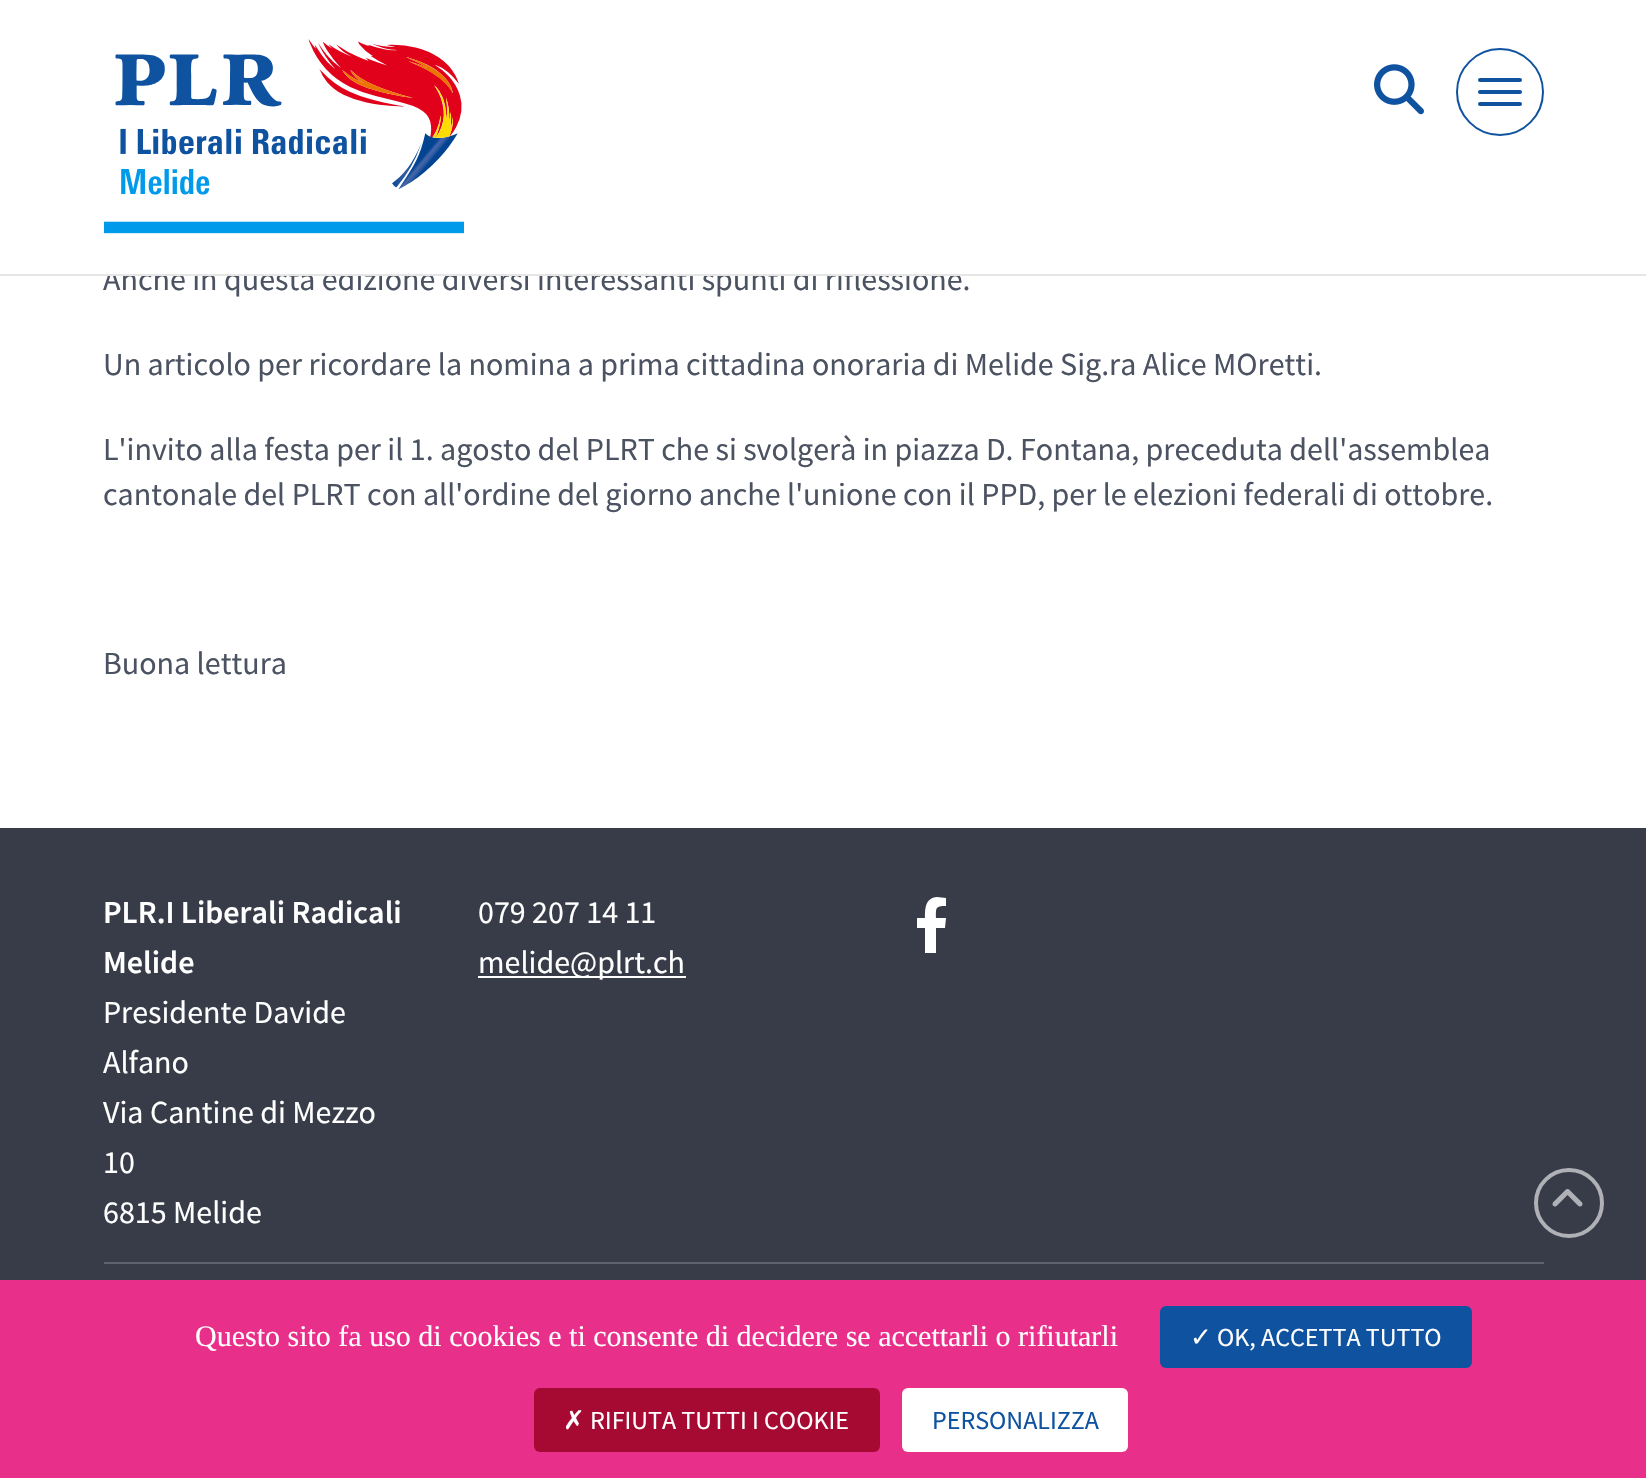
void draw(SkCanvas* c) {
SkPaint p;
p.setAntiAlias(true);
auto F=[&](const char* family, int weight, float size, bool italic = false){SkFontStyle style(weight, SkFontStyle::kNormal_Width,italic ? SkFontStyle::kItalic_Slant : SkFontStyle::kUpright_Slant);SkFont result(fontMgr->matchFamilyStyle(family, style), size);result.setSubpixel(true);return result;};
auto T=[&](const char* s, float x, float y, const SkFont& font){c->drawString(s, x, y, font, p);};
auto R=[&](float x, float y, float w, float h){c->drawRect(SkRect::MakeXYWH(x, y, w, h), p);};
auto Q=[&](float x, float y, float w, float h, float radius){c->drawRoundRect(SkRect::MakeXYWH(x, y, w, h), radius, radius, p);};
auto I=[&](const char* path, float x, float y, float w, float h){auto image = SkImages::DeferredFromEncodedData(SkData::MakeFromFileName(path));c->drawImageRect(image, SkRect::MakeXYWH(x, y, w, h), SkSamplingOptions());};
auto P=[&](const char* data, bool evenOdd = false){SkPath result = *SkParsePath::FromSVGString(data);if (evenOdd) result.setFillType(SkPathFillType::kEvenOdd);return result;};
c->clear(0xff373c48);
p.setColor(0xffffffff);
R(0,276,1646,552);
auto f1 = F("Source Sans Pro",400,32);
p.setColor(0xff4b5261);
T("Anche in questa edizione diversi interessanti spunti di riflessione.",103,290,f1);
p.setColor(0xffffffff);
R(0,0,1646,274);
p.setColor(0xffe6e6e6);
R(0,274,1646,2);
I("1.png",104,39,360,195);
I("2.png",1374,64,50,51);
p.setStroke(true);
p.setStrokeWidth(2);
p.setColor(0xff0e52a0);
c->drawCircle(1500,92,43,p);
p.setStroke(false);
Q(1478,78,44,4,2);
Q(1478,90,44,4,2);
Q(1478,102,44,4,2);
p.setColor(0xff4b5261);
T("Un articolo per ricordare la nomina a prima cittadina onoraria di Melide Sig.ra Alice MOretti.",103,375,f1);
T("L'invito alla festa per il 1. agosto del PLRT che si svolgerà in piazza D. Fontana, preceduta dell'assemblea",103,460,f1);
T("cantonale del PLRT con all'ordine del giorno anche l'unione con il PPD, per le elezioni federali di ottobre.",103,505,f1);
T("Buona lettura",103,674,f1);
auto f2 = F("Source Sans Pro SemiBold",600,32);
p.setColor(0xffffffff);
T("PLR.I Liberali Radicali",103,923,f2);
T("Melide",103,973,f2);
T("Presidente Davide",103,1023,f1);
T("Alfano",103,1073,f1);
T("Via Cantine di Mezzo",103,1123,f1);
T("10",103,1173,f1);
T("6815 Melide",103,1223,f1);
T("079 207 14 11",478,923,f1);
R(478,976,208,2);
T("melide@plrt.ch",478,973,f1);
c->drawPath(P("M945 928l1-10h-10c0-10-1-12 10-12v-8l-9-1c-12 1-12 12-12 21h-8v10h8v25h11v-25z"),p);
p.setStroke(true);
p.setStrokeWidth(4);
p.setColor(0xffafb1b6);
c->drawCircle(1569,1203,33,p);
I("3.png",1552,1189,31,18);
p.setStroke(false);
p.setColor(0xff5f636d);
R(104,1262,1440,2);
p.setColor(0xffe8308a);
R(0,1280,1646,198);
auto f3 = F("Liberation Serif",400,30);
p.setColor(0xffffffff);
T("Questo sito fa uso di cookies e ti consente di decidere se accettarli o rifiutarli",195,1346,f3);
p.setColor(0xff0e52a0);
Q(1160,1306,312,62,6);
auto f4 = F("DejaVu Sans",400,26);
p.setColor(0xffffffff);
T("✓",1190,1346,f4);
auto f5 = F("Source Sans Pro",400,26);
T("OK, ACCETTA TUTTO",1217,1346,f5);
p.setColor(0xffa60a33);
Q(534,1388,346,64,6);
p.setColor(0xffffffff);
T("✗",563,1429,f4);
T("RIFIUTA TUTTI I COOKIE",590,1429,f5);
Q(902,1388,226,64,6);
p.setColor(0xff0e52a0);
T("PERSONALIZZA",932,1429,f5);
}
